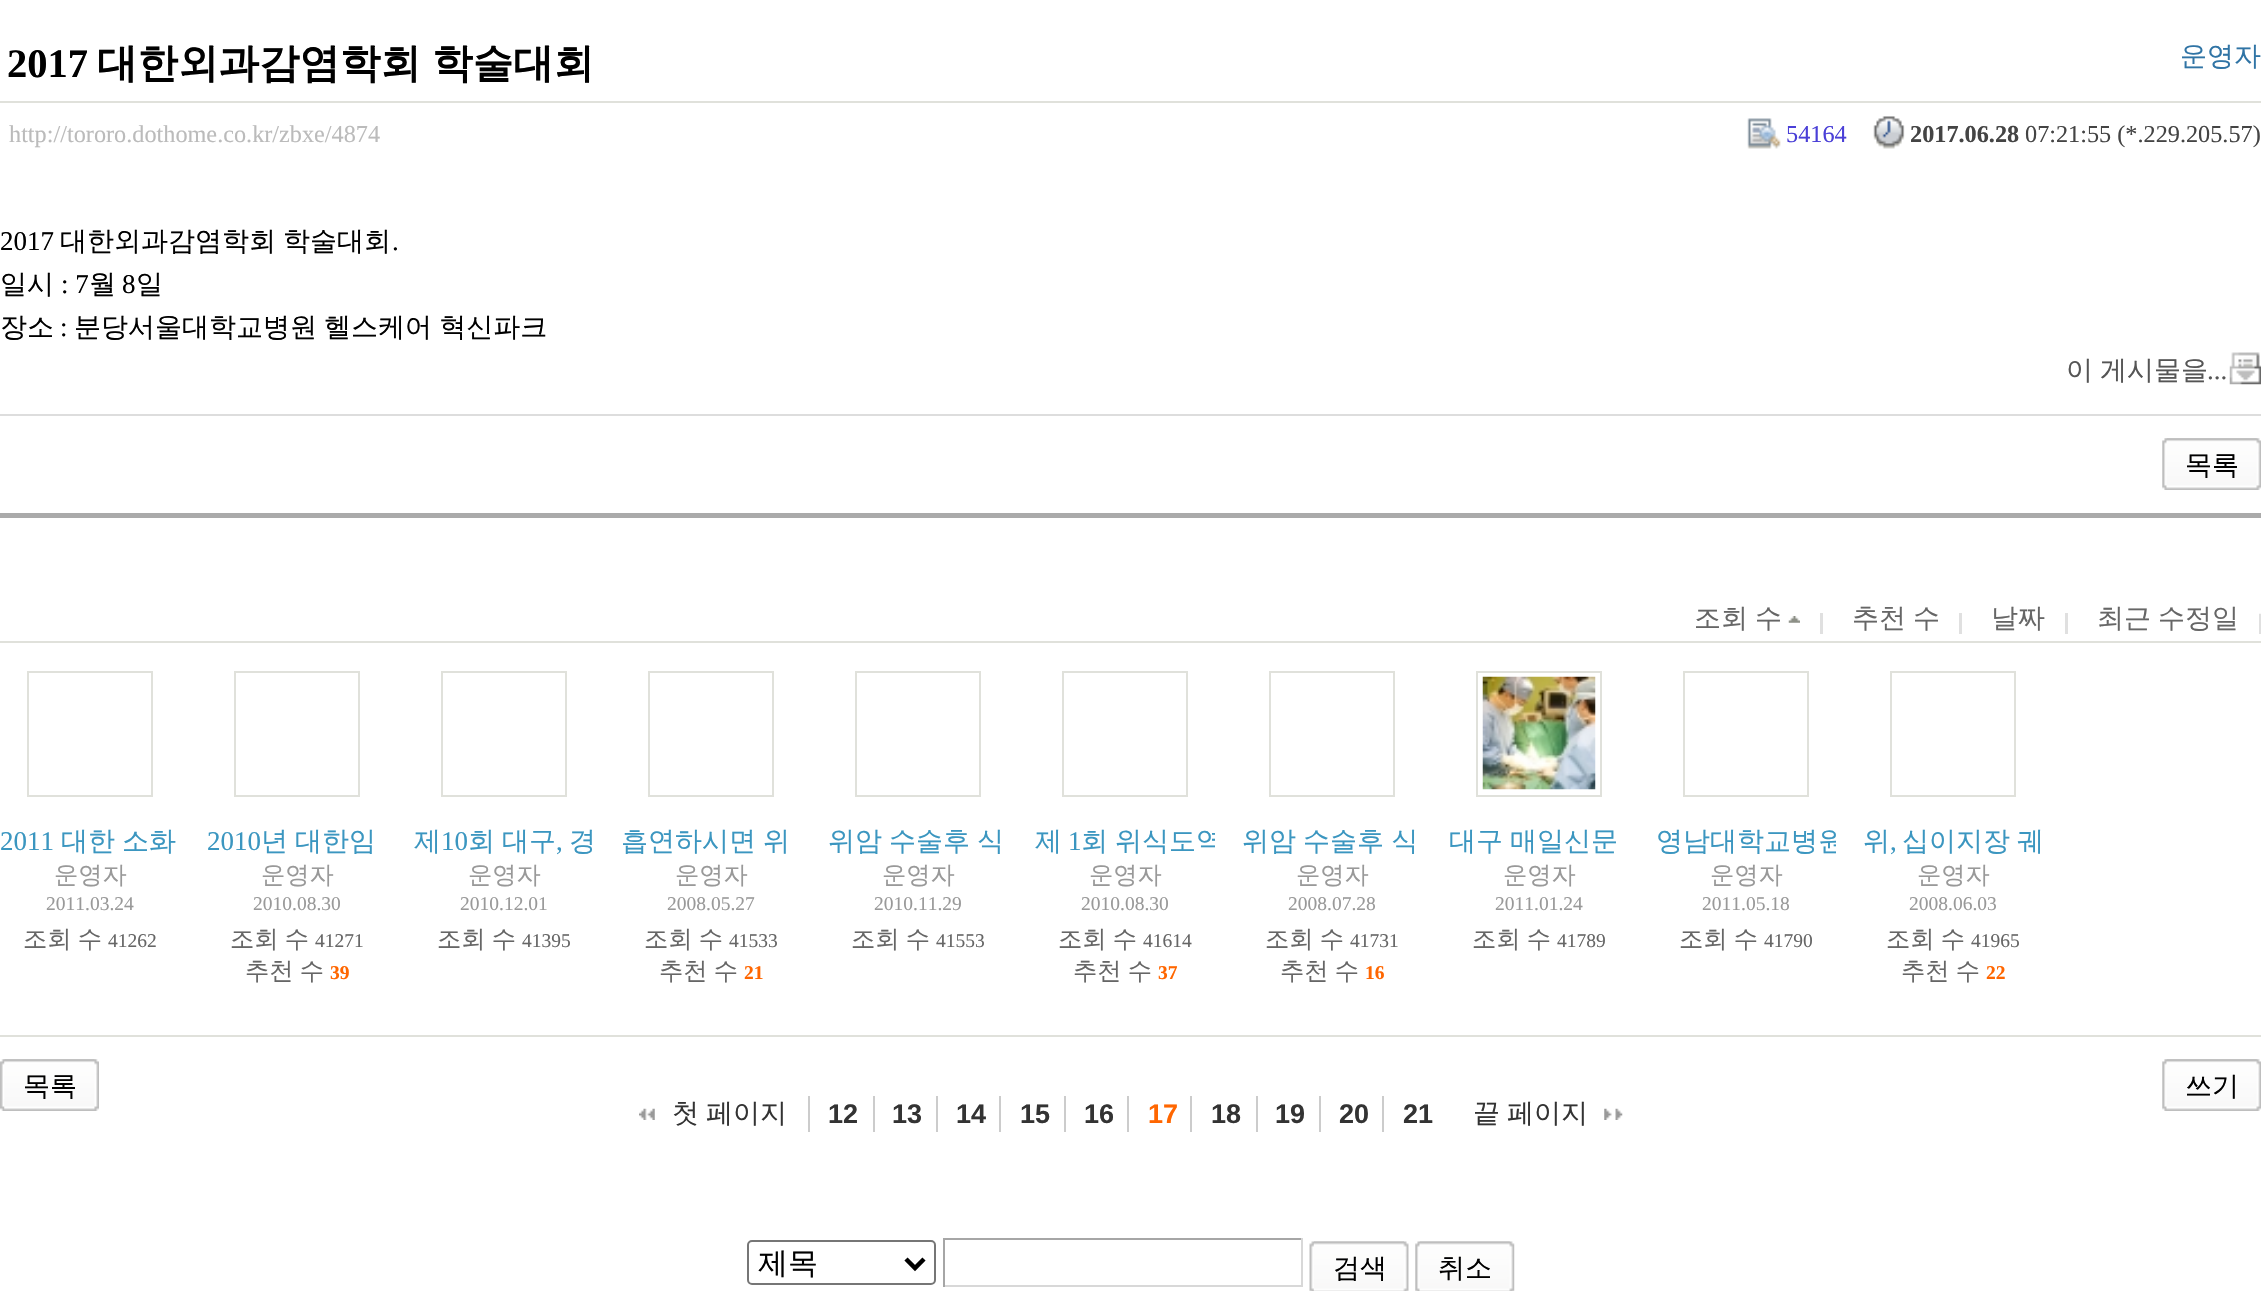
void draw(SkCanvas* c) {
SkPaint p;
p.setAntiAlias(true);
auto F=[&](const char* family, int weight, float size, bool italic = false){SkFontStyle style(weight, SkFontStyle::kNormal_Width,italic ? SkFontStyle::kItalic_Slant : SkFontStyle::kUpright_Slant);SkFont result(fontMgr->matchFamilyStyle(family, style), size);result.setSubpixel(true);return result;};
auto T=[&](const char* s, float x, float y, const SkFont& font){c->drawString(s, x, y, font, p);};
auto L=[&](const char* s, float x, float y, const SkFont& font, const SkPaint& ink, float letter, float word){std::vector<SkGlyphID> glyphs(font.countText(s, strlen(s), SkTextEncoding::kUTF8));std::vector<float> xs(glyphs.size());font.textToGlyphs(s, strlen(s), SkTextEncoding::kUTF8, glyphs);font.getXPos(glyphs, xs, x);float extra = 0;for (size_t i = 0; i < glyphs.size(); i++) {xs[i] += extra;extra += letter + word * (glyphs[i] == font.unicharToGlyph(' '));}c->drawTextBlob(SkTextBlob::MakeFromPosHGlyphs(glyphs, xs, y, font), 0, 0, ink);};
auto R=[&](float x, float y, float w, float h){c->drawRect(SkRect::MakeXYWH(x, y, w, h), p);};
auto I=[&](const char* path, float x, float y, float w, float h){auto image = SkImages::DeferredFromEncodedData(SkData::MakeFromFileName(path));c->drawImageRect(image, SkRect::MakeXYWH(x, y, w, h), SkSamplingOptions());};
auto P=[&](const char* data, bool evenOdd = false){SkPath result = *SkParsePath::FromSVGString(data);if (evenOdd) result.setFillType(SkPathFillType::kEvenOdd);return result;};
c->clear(0xffffffff);
p.setColor(0xffaaaaaa);
R(0,513,2261,5);
p.setColor(0xffe0e1db);
R(0,101,2261,2);
auto f1 = F("Liberation Serif",700,40.5);
p.setColor(0xff000000);
T("2017",7,77,f1);
auto f2 = F("WenQuanYi Zen Hei",700,40.5);
L("대한외과감염학회 학술대회",97,77,f2,p,0,-1);
auto f3 = F("WenQuanYi Zen Hei",500,27);
p.setColor(0xff3074a5);
T("운영자",2180,65,f3);
auto f4 = F("Liberation Serif",400,24.25);
p.setColor(0xffbbbbbb);
T("http://tororo.dothome.co.kr/zbxe/4874",9,142,f4);
I("1.png",1747,118,34,31);
p.setColor(0xff4a3fd7);
T("54164",1786,142,f4);
I("2.png",1873,116,32,33);
auto f5 = F("Liberation Serif",700,24.25);
p.setColor(0xff444444);
T("2017.06.28",1910,142,f5);
T("07:21:55 (*.229.205.57)",2025,142,f4);
auto f6 = F("Liberation Serif",400,27);
p.setColor(0xff000000);
T("2017",0,250,f6);
L("대한외과감염학회 학술대회",60,250,f3,p,0,-1);
T(".",392,250,f6);
T("일시",0,293,f3);
T(": 7",61,293,f6);
T("월",89,293,f3);
T("8",122,293,f6);
T("일",136,293,f3);
T("장소",0,336,f3);
T(":",60,336,f6);
L("분당서울대학교병원 헬스케어 혁신파크",74,336,f3,p,0,-1);
I("3.png",2229,352,32,33);
p.setColor(0xff555555);
L("이 게시물을",2066,379,f3,p,0,-1);
T("...",2207,379,f6);
p.setColor(0xffdddddd);
R(0,414,2261,2);
I("4.png",2162,438,95,52);
I("5.png",2166,438,95,52);
p.setColor(0xff000000);
T("목록",2185,474,f3);
p.setColor(0xffe0e1db);
R(0,641,2261,2);
p.setColor(0xff666666);
L("조회 수",1694,627,f3,p,0,-1);
p.setColor(0xffe0e0e0);
R(1820,613,3,21);
I("6.png",1788,616,12,7);
p.setColor(0xff666666);
L("추천 수",1852,627,f3,p,0,-1);
p.setColor(0xffe0e0e0);
R(1959,613,3,21);
p.setColor(0xff666666);
T("날짜",1991,627,f3);
p.setColor(0xffe0e0e0);
R(2065,613,3,21);
p.setColor(0xff666666);
L("최근 수정일",2097,627,f3,p,0,-1);
I("7.png",2259,613,2,21);
p.setColor(0xffe0e1db);
R(0,1035,2261,2);
p.setStroke(true);
p.setStrokeWidth(2);
c->drawRect(SkRect::MakeXYWH(28,672,124,124),p);
p.setStroke(false);
p.setColor(0xff3b96c0);
T("2011",0,850,f6);
T("대한",61,850,f3);
T("소화",122,850,f3);
auto f7 = F("WenQuanYi Zen Hei",500,24.25);
p.setColor(0xff999999);
T("운영자",54,883,f7);
auto f8 = F("Liberation Serif",400,19.5);
T("2011.03.24",46,910,f8);
p.setColor(0xff666666);
L("조회 수",23,947,f7,p,0,-1);
T("41262",108,947,f8);
p.setStroke(true);
p.setColor(0xffe0e1db);
c->drawRect(SkRect::MakeXYWH(235,672,124,124),p);
p.setStroke(false);
p.setColor(0xff3b96c0);
T("2010",207,850,f6);
L("년 대한임",261,850,f3,p,0,-1);
p.setColor(0xff999999);
T("운영자",261,883,f7);
T("2010.08.30",253,910,f8);
p.setColor(0xff666666);
L("조회 수",230,947,f7,p,0,-1);
T("41271",315,947,f8);
L("추천 수",245,979,f7,p,0,-1);
auto f9 = F("Liberation Serif",700,19.5);
p.setColor(0xffff6600);
T("39",330,979,f9);
p.setStroke(true);
p.setColor(0xffe0e1db);
c->drawRect(SkRect::MakeXYWH(442,672,124,124),p);
p.setStroke(false);
p.setColor(0xff3b96c0);
T("제",414,850,f3);
T("10",441,850,f6);
T("회",468,850,f3);
T("대구",502,850,f3);
T(",",556,850,f6);
T("경",569,850,f3);
p.setColor(0xff999999);
T("운영자",468,883,f7);
T("2010.12.01",460,910,f8);
p.setColor(0xff666666);
L("조회 수",437,947,f7,p,0,-1);
T("41395",522,947,f8);
p.setStroke(true);
p.setColor(0xffe0e1db);
c->drawRect(SkRect::MakeXYWH(649,672,124,124),p);
p.setStroke(false);
p.setColor(0xff3b96c0);
L("흡연하시면 위",621,850,f3,p,0,-1);
p.setColor(0xff999999);
T("운영자",675,883,f7);
T("2008.05.27",667,910,f8);
p.setColor(0xff666666);
L("조회 수",644,947,f7,p,0,-1);
T("41533",729,947,f8);
L("추천 수",659,979,f7,p,0,-1);
p.setColor(0xffff6600);
T("21",744,979,f9);
p.setStroke(true);
p.setColor(0xffe0e1db);
c->drawRect(SkRect::MakeXYWH(856,672,124,124),p);
p.setStroke(false);
p.setColor(0xff3b96c0);
T("위암",828,850,f3);
T("수술후",889,850,f3);
T("식",977,850,f3);
p.setColor(0xff999999);
T("운영자",882,883,f7);
T("2010.11.29",874,910,f8);
p.setColor(0xff666666);
L("조회 수",851,947,f7,p,0,-1);
T("41553",936,947,f8);
p.setStroke(true);
p.setColor(0xffe0e1db);
c->drawRect(SkRect::MakeXYWH(1063,672,124,124),p);
p.setStroke(false);
p.setColor(0xff3b96c0);
T("제",1035,850,f3);
T("1",1068,850,f6);
c->save();
c->clipRect(SkRect::MakeXYWH(1035,824,180,96));
L("회 위식도역",1081,850,f3,p,0,-1);
c->restore();
p.setColor(0xff999999);
T("운영자",1089,883,f7);
T("2010.08.30",1081,910,f8);
p.setColor(0xff666666);
L("조회 수",1058,947,f7,p,0,-1);
T("41614",1143,947,f8);
L("추천 수",1073,979,f7,p,0,-1);
p.setColor(0xffff6600);
T("37",1158,979,f9);
p.setStroke(true);
p.setColor(0xffe0e1db);
c->drawRect(SkRect::MakeXYWH(1270,672,124,124),p);
p.setStroke(false);
p.setColor(0xff3b96c0);
L("위암 수술후 식",1242,850,f3,p,0,-1);
p.setColor(0xff999999);
T("운영자",1296,883,f7);
T("2008.07.28",1288,910,f8);
p.setColor(0xff666666);
L("조회 수",1265,947,f7,p,0,-1);
T("41731",1350,947,f8);
L("추천 수",1280,979,f7,p,0,-1);
p.setColor(0xffff6600);
T("16",1365,979,f9);
p.setStroke(true);
p.setColor(0xffe0e1db);
c->drawRect(SkRect::MakeXYWH(1477,672,124,124),p);
I("8.png",1482,676,114,114);
p.setStroke(false);
p.setColor(0xff3b96c0);
T("대구",1449,850,f3);
T("매일신문",1510,850,f3);
p.setColor(0xff999999);
T("운영자",1503,883,f7);
T("2011.01.24",1495,910,f8);
p.setColor(0xff666666);
L("조회 수",1472,947,f7,p,0,-1);
T("41789",1557,947,f8);
p.setStroke(true);
p.setColor(0xffe0e1db);
c->drawRect(SkRect::MakeXYWH(1684,672,124,124),p);
c->save();
c->clipRect(SkRect::MakeXYWH(1656,824,180,96));
p.setStroke(false);
p.setColor(0xff3b96c0);
T("영남대학교병원",1656,850,f3);
c->restore();
p.setColor(0xff999999);
T("운영자",1710,883,f7);
T("2011.05.18",1702,910,f8);
p.setColor(0xff666666);
L("조회 수",1679,947,f7,p,0,-1);
T("41790",1764,947,f8);
p.setStroke(true);
p.setColor(0xffe0e1db);
c->drawRect(SkRect::MakeXYWH(1891,672,124,124),p);
p.setStroke(false);
p.setColor(0xff3b96c0);
T("위",1863,850,f3);
T(",",1890,850,f6);
L("십이지장 궤",1902,850,f3,p,0,-1);
p.setColor(0xff999999);
T("운영자",1917,883,f7);
T("2008.06.03",1909,910,f8);
p.setColor(0xff666666);
L("조회 수",1886,947,f7,p,0,-1);
T("41965",1971,947,f8);
L("추천 수",1901,979,f7,p,0,-1);
p.setColor(0xffff6600);
T("22",1986,979,f9);
I("9.png",0,1059,95,52);
I("10.png",4,1059,95,52);
p.setColor(0xff000000);
T("목록",23,1095,f3);
I("11.png",2162,1059,95,52);
I("12.png",2166,1059,95,52);
T("쓰기",2185,1095,f3);
I("13.png",639,1108,16,12);
p.setColor(0xff333333);
L("첫 페이지",672,1122,f3,p,0,-1);
p.setColor(0xffcccccc);
R(808,1096,2,36);
auto f10 = F("Liberation Sans",700,27);
p.setColor(0xff333333);
T("12",828,1123,f10);
p.setColor(0xffcccccc);
R(873,1096,2,36);
p.setColor(0xff333333);
T("13",892,1123,f10);
p.setColor(0xffcccccc);
R(936,1096,2,36);
p.setColor(0xff333333);
T("14",956,1123,f10);
p.setColor(0xffcccccc);
R(999,1096,2,36);
p.setColor(0xff333333);
T("15",1020,1123,f10);
p.setColor(0xffcccccc);
R(1064,1096,2,36);
p.setColor(0xff333333);
T("16",1084,1123,f10);
p.setColor(0xffcccccc);
R(1127,1096,2,36);
p.setColor(0xffff6600);
T("17",1148,1123,f10);
p.setColor(0xffcccccc);
R(1190,1096,2,36);
p.setColor(0xff333333);
T("18",1211,1123,f10);
p.setColor(0xffcccccc);
R(1256,1096,2,36);
p.setColor(0xff333333);
T("19",1275,1123,f10);
p.setColor(0xffcccccc);
R(1319,1096,2,36);
p.setColor(0xff333333);
T("20",1339,1123,f10);
p.setColor(0xffcccccc);
R(1382,1096,2,36);
p.setColor(0xff333333);
T("21",1403,1123,f10);
I("14.png",1604,1108,19,12);
L("끝 페이지",1473,1122,f3,p,0,-1);
p.setStroke(true);
p.setColor(0xff767676);
c->drawRoundRect(SkRect::MakeXYWH(748,1241,187,43),4,4,p);
p.setStrokeWidth(4.5);
p.setColor(0xff000000);
c->drawPath(P("M906 1259l9 9l9-9"),p);
auto f11 = F("WenQuanYi Zen Hei",500,30);
p.setStroke(false);
T("제목",758,1273,f11);
p.setColor(0xffa6a6a6);
R(943,1238,360,2);
p.setColor(0xffd8d8d8);
R(1301,1238,2,49);
R(943,1285,360,2);
p.setColor(0xffa6a6a6);
R(943,1238,2,49);
I("15.png",1309,1241,95,50);
I("16.png",1314,1241,95,50);
p.setColor(0xff000000);
T("검색",1333,1277,f3);
I("17.png",1415,1241,95,50);
I("18.png",1419,1241,96,50);
T("취소",1438,1277,f3);
}
